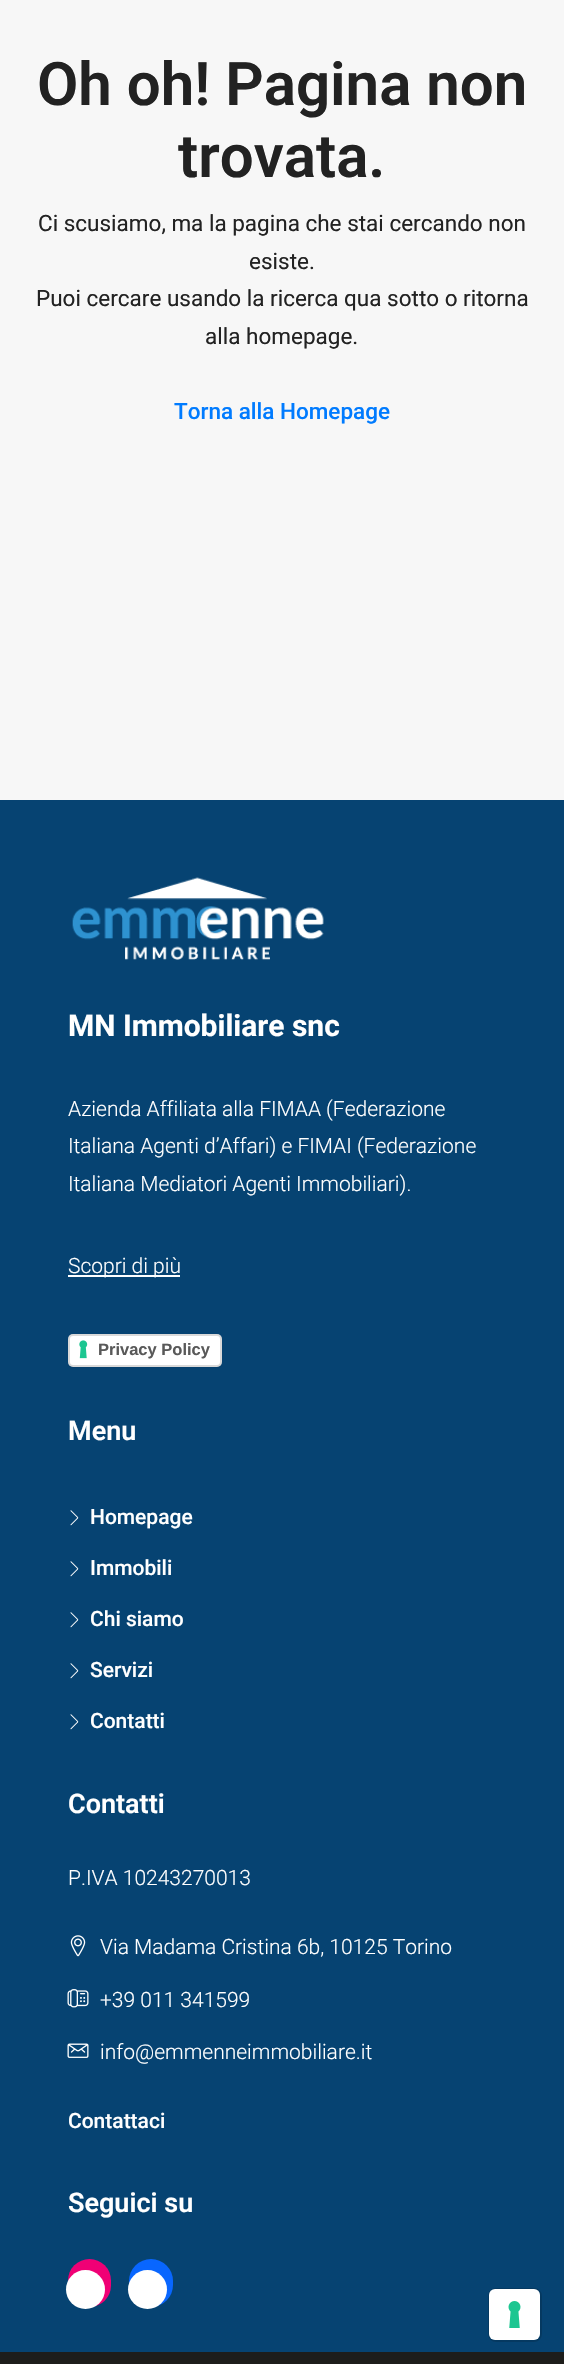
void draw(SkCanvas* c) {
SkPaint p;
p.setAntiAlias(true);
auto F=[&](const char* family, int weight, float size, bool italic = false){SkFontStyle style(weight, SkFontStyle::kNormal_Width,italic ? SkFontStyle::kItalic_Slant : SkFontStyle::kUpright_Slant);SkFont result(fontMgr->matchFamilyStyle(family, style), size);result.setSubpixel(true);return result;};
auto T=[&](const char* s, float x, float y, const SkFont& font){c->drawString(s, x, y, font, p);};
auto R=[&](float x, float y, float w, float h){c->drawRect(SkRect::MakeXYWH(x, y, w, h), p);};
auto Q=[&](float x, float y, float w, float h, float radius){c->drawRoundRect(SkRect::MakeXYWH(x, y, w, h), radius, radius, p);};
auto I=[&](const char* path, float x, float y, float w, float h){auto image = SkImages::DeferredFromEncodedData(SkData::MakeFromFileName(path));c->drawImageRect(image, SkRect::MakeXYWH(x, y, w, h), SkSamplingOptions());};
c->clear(0xfff7f7f7);
auto f1 = F("Roboto",600,60);
p.setColor(0xff222222);
T("Oh oh! Pagina non",37,105,f1);
T("trovata.",178,177,f1);
auto f2 = F("Roboto",400,22.5);
T("Ci scusiamo, ma la pagina che stai cercando non",38,231,f2);
T("esiste.",249,269,f2);
T("Puoi cercare usando la ricerca qua sotto o ritorna",36,306,f2);
T("alla homepage.",205,344,f2);
auto f3 = F("Roboto",500,22.5);
p.setColor(0xff007bff);
T("Torna alla Homepage",174,419,f3);
p.setColor(0xff064372);
R(0,800,564,1552);
I("1.png",72,877,252,83);
auto f4 = F("Roboto",700,30);
p.setColor(0xffffffff);
T("MN Immobiliare snc",68,1036,f4);
auto f5 = F("Roboto",300,21);
T("Azienda Affiliata alla FIMAA (Federazione",68,1116,f5);
T("Italiana Agenti d’Affari) e FIMAI (Federazione",68,1153,f5);
T("Italiana Mediatori Agenti Immobiliari).",68,1191,f5);
R(68,1275,112,2);
T("Scopri di più",68,1273,f5);
p.setColor(0x26000000);
p.setMaskFilter(SkMaskFilter::MakeBlur(kNormal_SkBlurStyle, 1));
c->drawRoundRect(SkRect::MakeXYWH(69,1337,152,30),3,3,p);
p.setMaskFilter(nullptr);
p.setColor(0xffffffff);
Q(68,1334,154,33,5);
I("2.png",79,1340,9,19);
p.setStroke(true);
p.setStrokeWidth(2);
p.setColor(0x26000000);
c->drawRoundRect(SkRect::MakeXYWH(69,1335,152,31),4,4,p);
auto f6 = F("Liberation Sans",700,16.5);
p.setStroke(false);
p.setColor(0xff595959);
T("Privacy Policy",98,1355,f6);
auto f7 = F("Roboto",600,27);
p.setColor(0xffffffff);
T("Menu",68,1440,f7);
I("3.png",70,1510,9,16);
auto f8 = F("Roboto",500,21);
T("Homepage",90,1524,f8);
I("3.png",70,1561,9,16);
T("Immobili",90,1575,f8);
I("3.png",70,1612,9,16);
T("Chi siamo",90,1626,f8);
I("3.png",70,1663,9,16);
T("Servizi",90,1677,f8);
I("3.png",70,1714,9,16);
T("Contatti",90,1728,f8);
T("Contatti",68,1813,f7);
T("P.IVA 10243270013",68,1885,f5);
I("4.png",70,1935,16,22);
T("Via Madama Cristina 6b, 10125 Torino",100,1954,f5);
I("5.png",67,1989,22,19);
T("+39 011 341599",100,2007,f5);
I("6.png",67,2043,22,15);
T("info@emmenneimmobiliare.it",100,2059,f5);
T("Contattaci",68,2128,f8);
T("Seguici su",68,2212,f7);
p.setColor(0xfff00075);
Q(68,2259,43,48,21.5);
p.setColor(0xffffffff);
c->drawCircle(85.5,2289.5,19.5,p);
p.setColor(0xff0866ff);
Q(129,2259,44,48,22);
p.setColor(0xffffffff);
c->drawCircle(147.5,2289.5,19.5,p);
p.setColor(0xff1d1d1b);
R(0,2352,564,12);
p.setStroke(true);
p.setColor(0xff053961);
c->drawRoundRect(SkRect::MakeXYWH(489,2289,52,52),7,7,p);
p.setStroke(false);
p.setColor(0xffffffff);
Q(489,2289,51,51,6);
I("7.png",508,2301,13,27);
}
